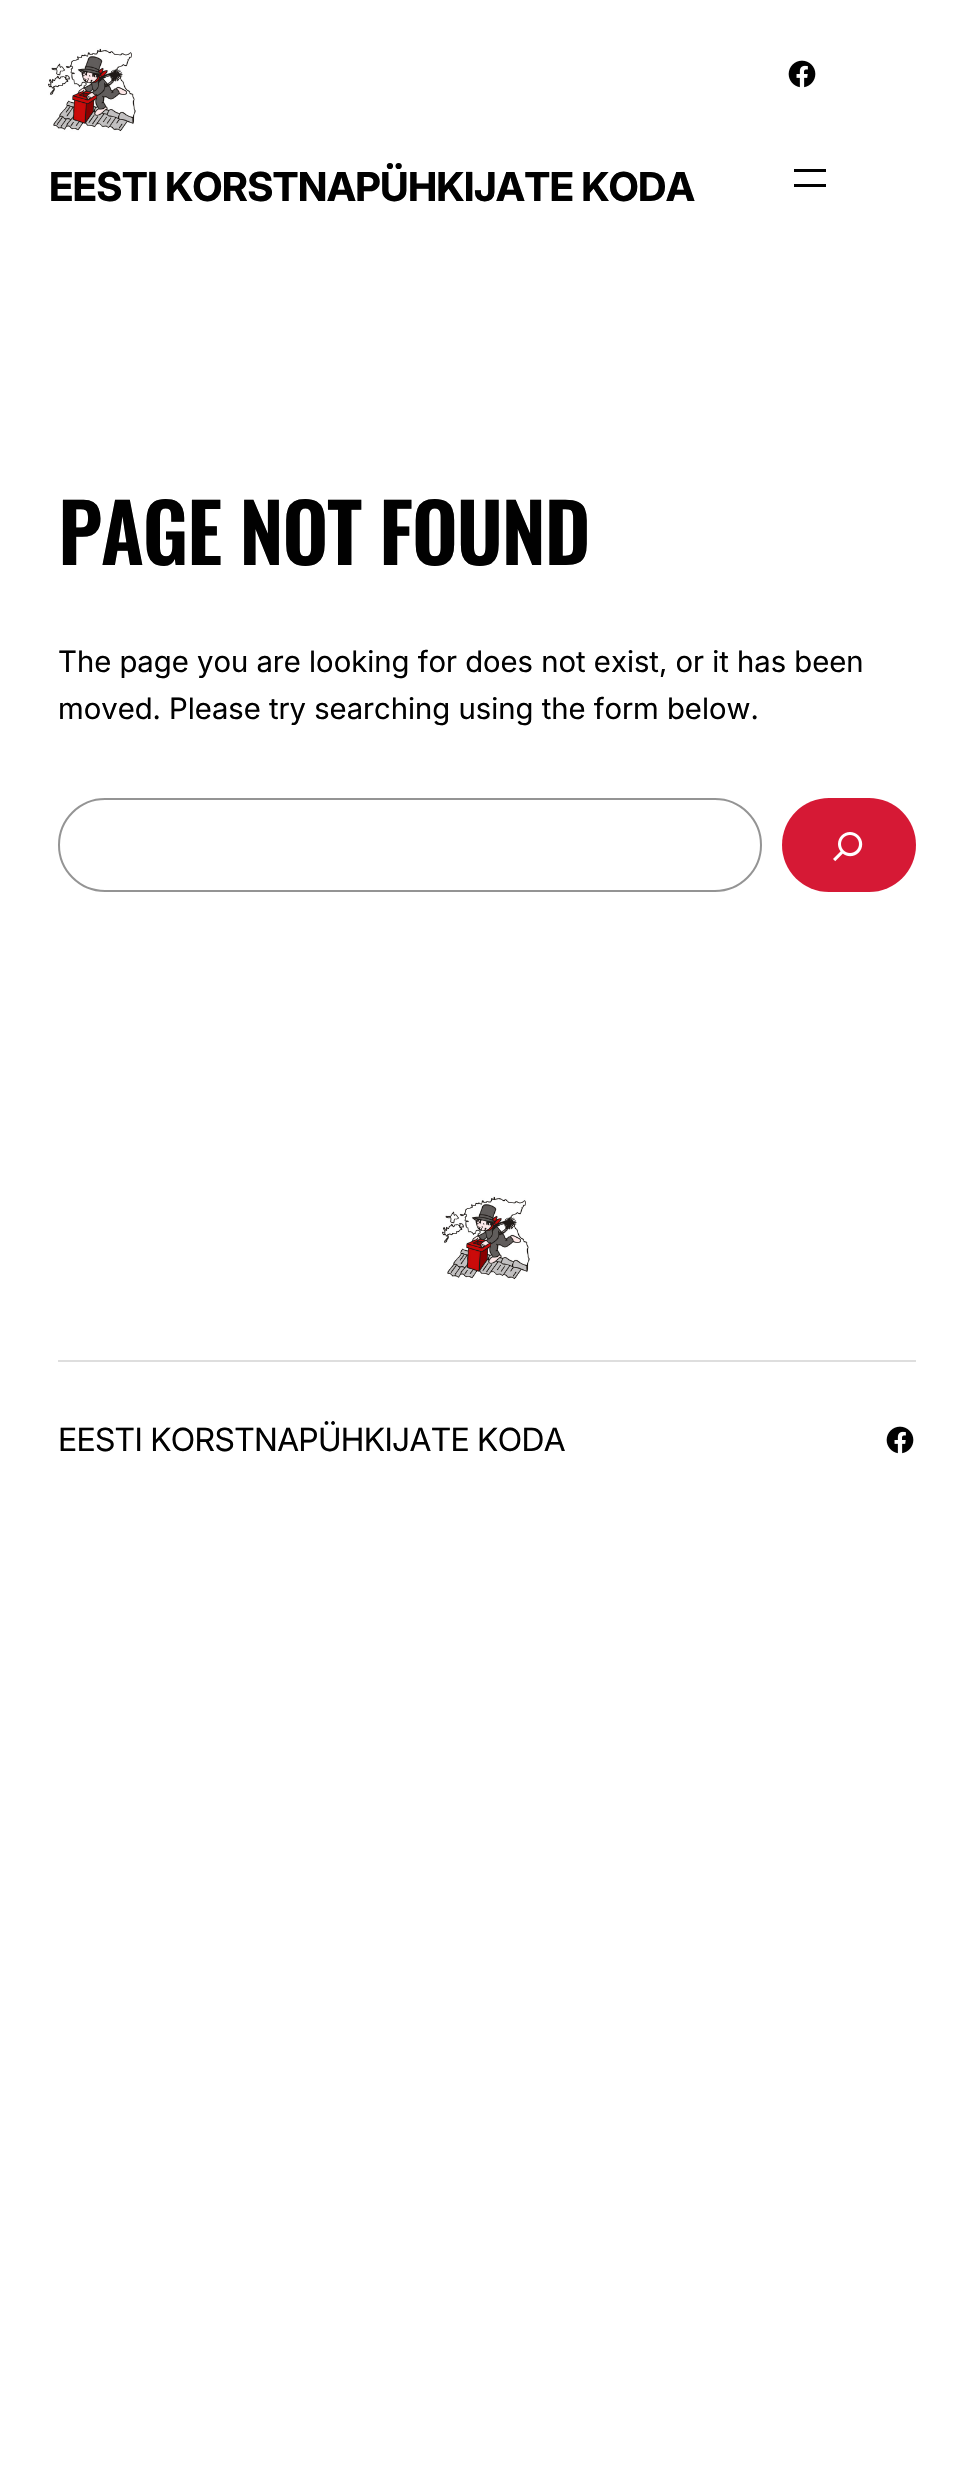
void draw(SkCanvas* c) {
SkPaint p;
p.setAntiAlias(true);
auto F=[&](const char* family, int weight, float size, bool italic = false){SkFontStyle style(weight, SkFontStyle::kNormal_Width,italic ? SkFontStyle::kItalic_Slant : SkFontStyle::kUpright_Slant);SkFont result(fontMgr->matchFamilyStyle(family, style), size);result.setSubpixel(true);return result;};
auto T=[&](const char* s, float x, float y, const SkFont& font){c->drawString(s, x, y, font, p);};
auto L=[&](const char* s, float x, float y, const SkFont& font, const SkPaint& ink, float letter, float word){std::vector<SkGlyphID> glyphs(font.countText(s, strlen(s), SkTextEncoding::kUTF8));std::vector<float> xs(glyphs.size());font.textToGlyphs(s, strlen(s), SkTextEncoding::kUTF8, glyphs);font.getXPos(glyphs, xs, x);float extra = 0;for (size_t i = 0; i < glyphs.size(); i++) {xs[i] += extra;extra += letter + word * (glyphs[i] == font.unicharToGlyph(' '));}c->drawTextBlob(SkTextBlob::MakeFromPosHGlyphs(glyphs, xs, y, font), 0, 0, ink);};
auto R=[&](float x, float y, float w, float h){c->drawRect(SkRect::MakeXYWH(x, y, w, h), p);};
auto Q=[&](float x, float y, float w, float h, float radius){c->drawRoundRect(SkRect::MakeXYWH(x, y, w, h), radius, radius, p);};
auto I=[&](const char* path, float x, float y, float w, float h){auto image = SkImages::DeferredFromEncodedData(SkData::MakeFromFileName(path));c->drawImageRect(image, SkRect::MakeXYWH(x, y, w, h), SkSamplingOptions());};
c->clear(0xffffffff);
I("1.png",48,48,88,84);
auto f1 = F("Inter",700,40);
p.setColor(0xff010101);
L("EESTI KORSTNAPÜHKIJATE KODA",49,201,f1,p,-.8,0);
I("2.png",788,60,28,28);
R(794,169,32,3);
R(794,184,32,3);
auto f2 = F("Oswald",600,80.5);
L("PAGE NOT FOUND",58,565,f2,p,-1.6,0);
auto f3 = F("Inter",400,29.4);
T("The page you are looking for does not exist, or it has been",58,672,f3);
T("moved. Please try searching using the form below.",58,719,f3);
p.setStroke(true);
p.setStrokeWidth(2);
p.setColor(0xff949494);
c->drawRoundRect(SkRect::MakeXYWH(59,799,702,92),46,46,p);
p.setStroke(false);
p.setColor(0xffd61935);
Q(782,798,134,94,47);
I("3.png",833,832,30,30);
I("4.png",442,1196,88,84);
p.setColor(0xffdedede);
R(58,1360,858,2);
auto f4 = F("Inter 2",400,32);
p.setColor(0xff010101);
L("EESTI KORSTNAPÜHKIJATE KODA",58,1451,f4,p,-.65,0);
I("2.png",886,1426,28,28);
}
